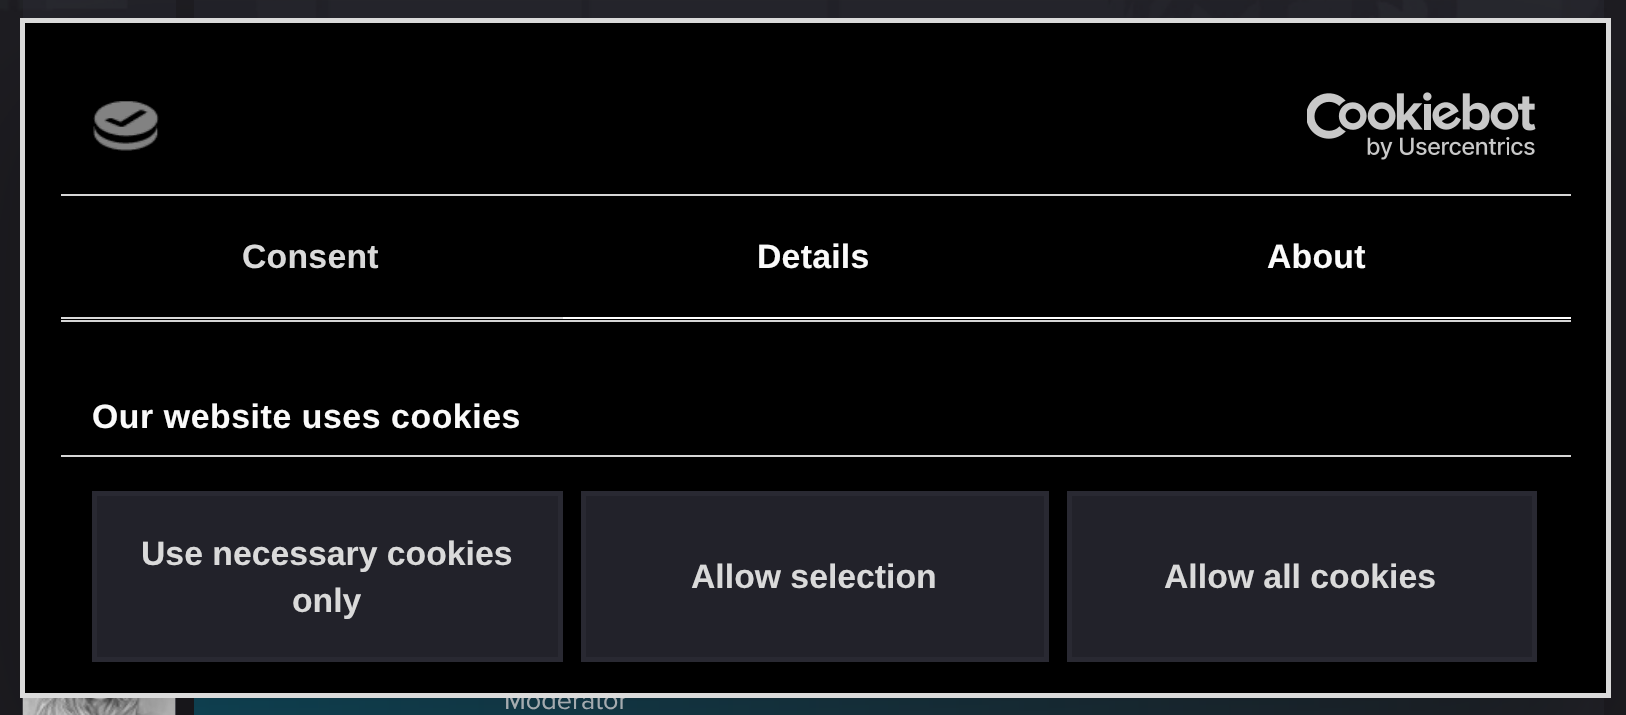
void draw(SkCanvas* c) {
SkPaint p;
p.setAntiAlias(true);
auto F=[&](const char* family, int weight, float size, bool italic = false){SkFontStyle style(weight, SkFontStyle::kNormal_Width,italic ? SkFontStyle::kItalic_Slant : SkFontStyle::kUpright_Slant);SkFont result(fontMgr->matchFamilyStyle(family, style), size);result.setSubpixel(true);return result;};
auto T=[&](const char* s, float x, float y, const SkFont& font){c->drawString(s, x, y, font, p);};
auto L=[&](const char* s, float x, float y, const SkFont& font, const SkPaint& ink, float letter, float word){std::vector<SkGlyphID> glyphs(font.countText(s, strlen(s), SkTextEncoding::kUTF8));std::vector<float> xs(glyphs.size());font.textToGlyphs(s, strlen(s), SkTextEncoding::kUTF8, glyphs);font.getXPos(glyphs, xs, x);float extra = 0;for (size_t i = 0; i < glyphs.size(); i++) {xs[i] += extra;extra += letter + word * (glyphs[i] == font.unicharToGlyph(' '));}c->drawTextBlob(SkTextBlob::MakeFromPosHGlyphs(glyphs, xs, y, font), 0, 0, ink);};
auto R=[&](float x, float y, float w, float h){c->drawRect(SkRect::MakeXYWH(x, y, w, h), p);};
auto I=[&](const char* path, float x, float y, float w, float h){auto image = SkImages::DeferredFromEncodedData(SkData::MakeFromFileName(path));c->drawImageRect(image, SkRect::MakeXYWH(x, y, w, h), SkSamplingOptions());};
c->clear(0xffffffff);
I("3.png",0,0,1626,715);
p.setColor(0x662b2b34);
R(23,0,153,18);
R(194,0,1410,18);
p.setColor(0xff383844);
R(175,698,1,17);
I("4.png",22,698,154,17);
{
const SkColor colors[] = {0xff125267,0xff232329};
const float stops[] = {0,1};
const SkPoint ends[] = {{194,698}, {1604,698}};
p.setShader(SkGradientShader::MakeLinear(ends, colors, stops, 2, SkTileMode::kClamp));
p.setAlpha(255);
}
R(194,698,1410,17);
p.setShader(nullptr);
p.setColor(0x4d000000);
p.setMaskFilter(SkMaskFilter::MakeBlur(kNormal_SkBlurStyle, 76.5));
c->drawRect(SkRect::MakeXYWH(20,90,1591,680),p);
p.setMaskFilter(nullptr);
auto f1 = F("Proxima Nova",400,27);
p.setColor(0xffa5abaf);
T("Moderator",504,709,f1);
p.setColor(0xff000000);
c->drawRect(SkRect::MakeXYWH(22.5,20.5,1586,675),p);
p.setStroke(true);
p.setStrokeWidth(5);
p.setColor(0xffdadada);
c->drawRect(SkRect::MakeXYWH(22.5,20.5,1586,675),p);
p.setStroke(false);
p.setColor(0xffd6d6d6);
R(61,194,1510,2);
I("1.png",93,101,66,50);
I("2.png",1307,92,229,68);
R(61,320,1510,2);
p.setColor(0xffdadada);
R(61,317,502,2);
auto f2 = F("Liberation Sans",700,33.75);
L("Consent",242,268,f2,p,.25,0);
p.setColor(0xffffffff);
R(563,317,1008,2);
p.setColor(0xfffafafa);
L("Details",757,268,f2,p,.25,0);
L("About",1267,268,f2,p,.25,0);
p.setColor(0xffd6d6d6);
R(61,455,1510,2);
p.setColor(0xfffafafa);
L("Our website uses cookies",92,428,f2,p,.6,0);
p.setColor(0xff22222a);
c->drawRect(SkRect::MakeXYWH(94.5,493.5,466,166),p);
p.setStroke(true);
p.setColor(0xff292932);
c->drawRect(SkRect::MakeXYWH(94.5,493.5,466,166),p);
p.setStroke(false);
p.setColor(0xffdadada);
T("Use necessary cookies",141,565,f2);
T("only",292,612,f2);
p.setColor(0xff22222a);
c->drawRect(SkRect::MakeXYWH(583.5,493.5,463,166),p);
p.setStroke(true);
p.setColor(0xff292932);
c->drawRect(SkRect::MakeXYWH(583.5,493.5,463,166),p);
p.setStroke(false);
p.setColor(0xffdadada);
T("Allow selection",691,588,f2);
p.setColor(0xff22222a);
c->drawRect(SkRect::MakeXYWH(1069.5,493.5,465,166),p);
p.setStroke(true);
p.setColor(0xff292932);
c->drawRect(SkRect::MakeXYWH(1069.5,493.5,465,166),p);
p.setStroke(false);
p.setColor(0xffdadada);
T("Allow all cookies",1164,588,f2);
}
